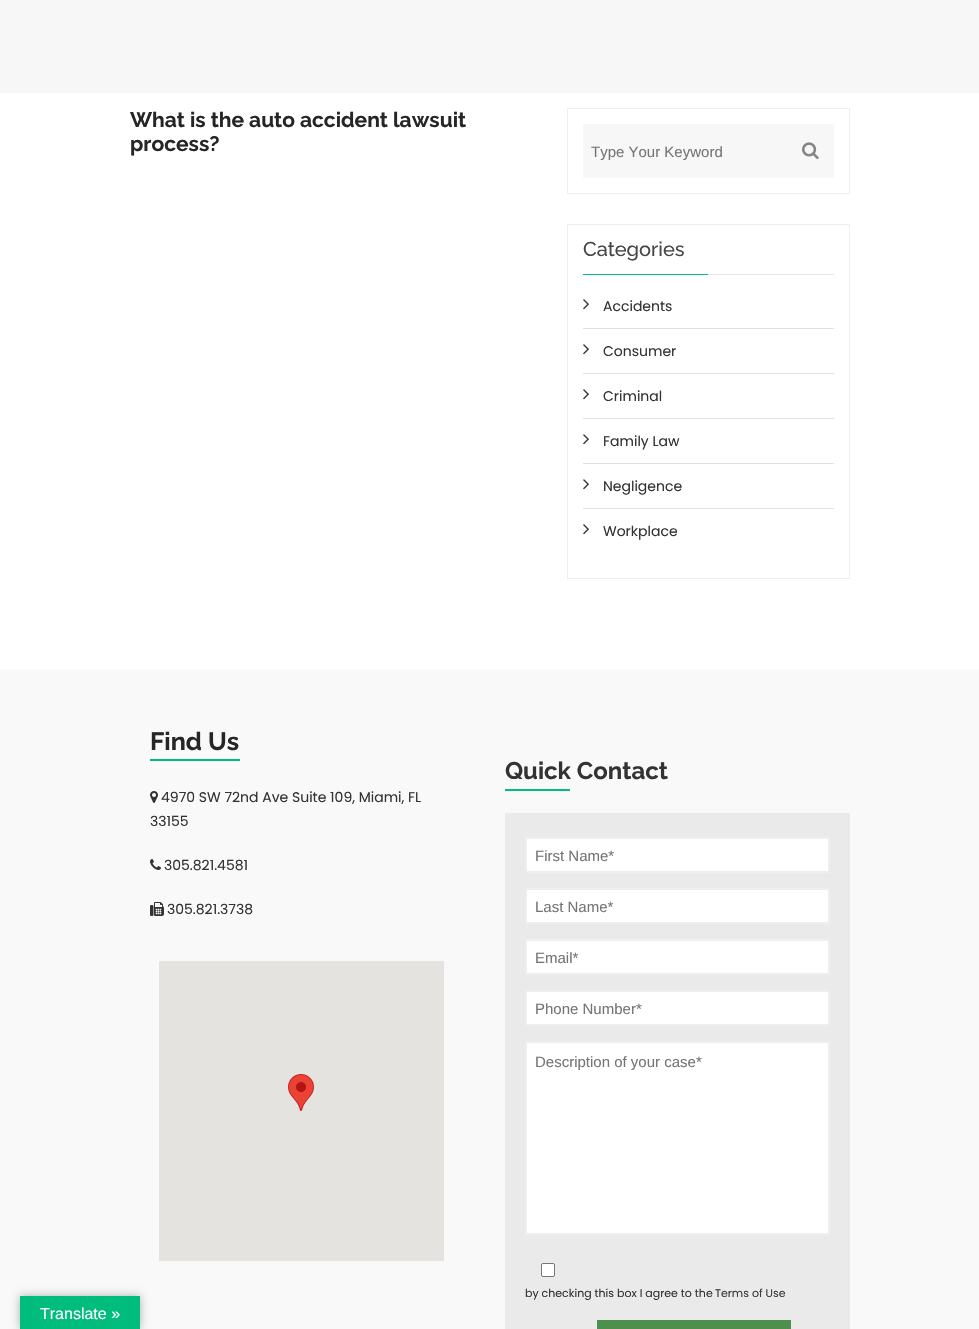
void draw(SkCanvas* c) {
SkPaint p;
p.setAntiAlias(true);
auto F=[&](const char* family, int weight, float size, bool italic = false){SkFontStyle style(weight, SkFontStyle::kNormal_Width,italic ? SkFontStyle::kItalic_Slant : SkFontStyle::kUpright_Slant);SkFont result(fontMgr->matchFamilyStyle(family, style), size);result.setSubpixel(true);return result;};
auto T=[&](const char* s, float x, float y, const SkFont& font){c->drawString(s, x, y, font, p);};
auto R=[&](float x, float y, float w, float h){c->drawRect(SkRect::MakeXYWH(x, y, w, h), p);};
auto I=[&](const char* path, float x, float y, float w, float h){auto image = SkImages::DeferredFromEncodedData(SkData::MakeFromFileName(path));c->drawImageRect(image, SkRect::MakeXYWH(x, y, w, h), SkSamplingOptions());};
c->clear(0xffffffff);
p.setColor(0xfff7f7f7);
R(0,0,979,93);
auto f1 = F("Raleway",700,21);
p.setColor(0xff262626);
T("What is the auto accident lawsuit",130,127,f1);
T("process?",130,151,f1);
p.setStroke(true);
p.setStrokeWidth(1);
p.setColor(0xffeeeeee);
c->drawRect(SkRect::MakeXYWH(567.5,108.5,282,85),p);
p.setStroke(false);
p.setColor(0xfff7f7f7);
R(583,124,251,54);
c->save();
c->clipRect(SkRect::MakeXYWH(591,143,235,17));
auto f2 = F("Liberation Sans",400,15);
p.setColor(0xff757575);
T("Type Your Keyword",591,157,f2);
c->restore();
I("1.png",802,142,17,17);
p.setStroke(true);
p.setColor(0xffeeeeee);
c->drawRect(SkRect::MakeXYWH(567.5,224.5,282,354),p);
p.setStroke(false);
p.setColor(0xffe5e5e5);
R(708,274,126,1);
auto f3 = F("Raleway",500,20);
p.setColor(0xff464646);
T("Categories",583,256,f3);
p.setColor(0xff00bd7d);
R(583,274,125,1);
p.setColor(0xffe0e0e0);
R(583,328,251,1);
I("2.png",583,299,6,11);
auto f4 = F("Poppins",400,14);
p.setColor(0xff333333);
T("Accidents",603,311,f4);
p.setColor(0xffe0e0e0);
R(583,373,251,1);
I("2.png",583,344,6,11);
p.setColor(0xff333333);
T("Consumer",603,356,f4);
p.setColor(0xffe0e0e0);
R(583,418,251,1);
I("2.png",583,389,6,11);
p.setColor(0xff333333);
T("Criminal",603,401,f4);
p.setColor(0xffe0e0e0);
R(583,463,251,1);
I("2.png",583,434,6,11);
p.setColor(0xff333333);
T("Family Law",603,446,f4);
p.setColor(0xffe0e0e0);
R(583,508,251,1);
I("2.png",583,479,6,11);
p.setColor(0xff333333);
T("Negligence",603,491,f4);
I("2.png",583,524,6,11);
T("Workplace",603,536,f4);
p.setColor(0xfff9f9f9);
R(0,669,979,660);
auto f5 = F("Raleway",700,25);
p.setColor(0xff262626);
T("Find Us",150,750,f5);
p.setColor(0xff00bd7d);
R(150,759,90,2);
I("3.png",150,791,8,12);
p.setColor(0xff333333);
T("4970 SW 72nd Ave Suite 109, Miami, FL",161,802,f4);
T("33155",150,826,f4);
I("4.png",150,859,11,11);
T("305.821.4581",164,870,f4);
I("5.png",150,902,14,14);
T("305.821.3738",167,914,f4);
p.setColor(0xffe5e3df);
R(159,961,285,300);
I("6.png",288,1074,26,37);
auto f6 = F("Raleway",700,24);
p.setColor(0xff333333);
T("Quick Contact",505,779,f6);
p.setColor(0xff00bd7d);
R(505,789,65,2);
p.setColor(0xffeaeaea);
R(505,813,345,516);
p.setColor(0xffffffff);
c->drawRect(SkRect::MakeXYWH(526,838,303,34),p);
p.setStroke(true);
p.setStrokeWidth(2);
p.setColor(0xffeeeeee);
c->drawRect(SkRect::MakeXYWH(526,838,303,34),p);
p.setStroke(false);
p.setColor(0xff757575);
T("First Name*",535,861,f2);
p.setColor(0xffffffff);
c->drawRect(SkRect::MakeXYWH(526,889,303,34),p);
p.setStroke(true);
p.setColor(0xffeeeeee);
c->drawRect(SkRect::MakeXYWH(526,889,303,34),p);
p.setStroke(false);
p.setColor(0xff757575);
T("Last Name*",535,912,f2);
p.setColor(0xffffffff);
c->drawRect(SkRect::MakeXYWH(526,940,303,34),p);
p.setStroke(true);
p.setColor(0xffeeeeee);
c->drawRect(SkRect::MakeXYWH(526,940,303,34),p);
p.setStroke(false);
p.setColor(0xff757575);
T("Email*",535,963,f2);
p.setColor(0xffffffff);
c->drawRect(SkRect::MakeXYWH(526,991,303,34),p);
p.setStroke(true);
p.setColor(0xffeeeeee);
c->drawRect(SkRect::MakeXYWH(526,991,303,34),p);
p.setStroke(false);
p.setColor(0xff757575);
T("Phone Number*",535,1014,f2);
p.setColor(0xffffffff);
c->drawRect(SkRect::MakeXYWH(526,1042,303,192),p);
p.setStroke(true);
p.setColor(0xffeeeeee);
c->drawRect(SkRect::MakeXYWH(526,1042,303,192),p);
p.setStroke(false);
p.setColor(0xff757575);
T("Description of your case*",535,1067,f2);
p.setColor(0xffffffff);
c->drawRoundRect(SkRect::MakeXYWH(541.5,1263.5,13,13),1.5,1.5,p);
p.setStroke(true);
p.setStrokeWidth(1);
p.setColor(0xff767676);
c->drawRoundRect(SkRect::MakeXYWH(541.5,1263.5,13,13),1.5,1.5,p);
auto f7 = F("Poppins",400,11);
p.setStroke(false);
p.setColor(0xff333333);
T("by checking this box I agree to the",525,1297,f7);
p.setColor(0xff3b3b3b);
T("Terms of Use",715,1297,f7);
p.setColor(0xff4d8f4d);
R(597,1320,194,9);
p.setColor(0x4d000000);
p.setMaskFilter(SkMaskFilter::MakeBlur(kNormal_SkBlurStyle, 4.5));
c->drawRect(SkRect::MakeXYWH(20,1296,120,33),p);
p.setMaskFilter(nullptr);
p.setColor(0xff00bd7d);
R(20,1296,120,33);
auto f8 = F("Liberation Sans",400,16);
p.setColor(0xffffffff);
T("Translate »",40,1319,f8);
}
